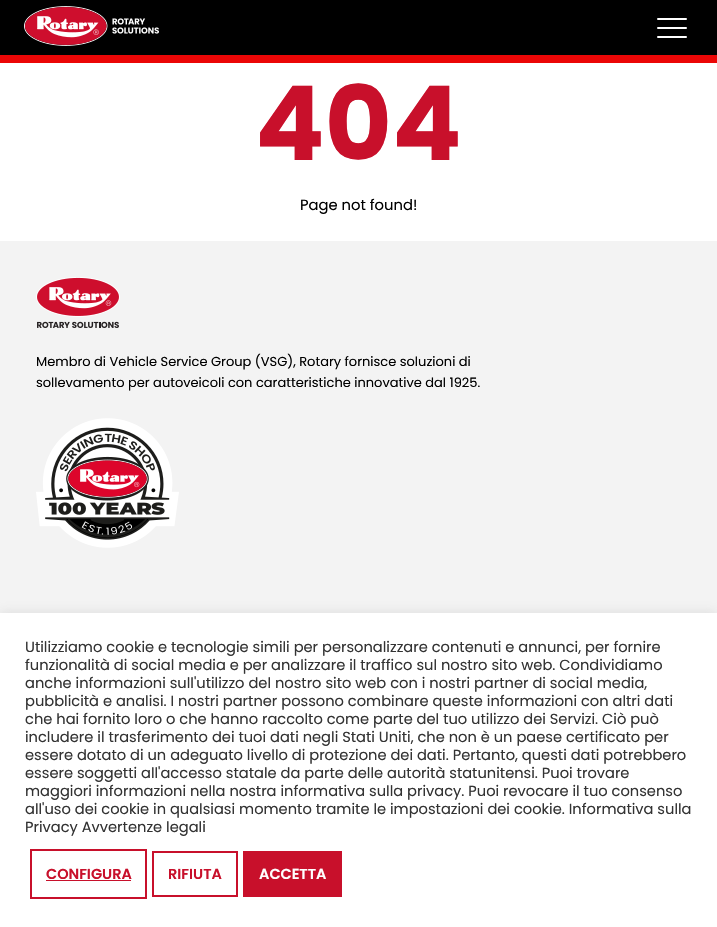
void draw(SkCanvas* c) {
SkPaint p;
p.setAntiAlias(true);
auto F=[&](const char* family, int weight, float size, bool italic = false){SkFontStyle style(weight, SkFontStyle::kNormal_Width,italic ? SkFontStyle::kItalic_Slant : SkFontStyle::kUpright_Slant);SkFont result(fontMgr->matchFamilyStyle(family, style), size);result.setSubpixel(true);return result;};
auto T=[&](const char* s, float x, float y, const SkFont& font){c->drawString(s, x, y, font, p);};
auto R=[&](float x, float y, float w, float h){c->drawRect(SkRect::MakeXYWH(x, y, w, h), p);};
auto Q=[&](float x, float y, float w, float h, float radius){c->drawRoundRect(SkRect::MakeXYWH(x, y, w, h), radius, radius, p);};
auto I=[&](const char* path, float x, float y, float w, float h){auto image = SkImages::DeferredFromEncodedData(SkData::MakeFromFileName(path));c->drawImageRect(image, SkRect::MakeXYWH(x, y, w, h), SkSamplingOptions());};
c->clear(0xffffffff);
p.setColor(0xffeb0606);
R(0,55,717,8);
p.setColor(0xff000000);
R(0,0,717,55);
I("1.png",24,6,135,40);
p.setColor(0xffffffff);
Q(657,18,30,2,1);
Q(657,27,30,2,1);
Q(657,36,30,2,1);
auto f1 = F("Poppins",700,103);
p.setColor(0xffc8102b);
T("404",255,160,f1);
auto f2 = F("Poppins",400,14.75);
p.setColor(0xff000000);
T("Page not found!",300,210,f2);
p.setColor(0xfff3f3f3);
R(0,241,717,372);
I("2.png",36,277,84,51);
auto f3 = F("Poppins",400,13);
p.setColor(0xff000000);
T("Membro di Vehicle Service Group (VSG), Rotary fornisce soluzioni di",36,366,f3);
T("sollevamento per autoveicoli con caratteristiche innovative dal 1925.",36,387,f3);
I("3.png",36,418,143,130);
p.setColor(0x4dacabab);
p.setMaskFilter(SkMaskFilter::MakeBlur(kNormal_SkBlurStyle, 5));
c->drawRect(SkRect::MakeXYWH(0,612,717,314),p);
p.setMaskFilter(nullptr);
p.setColor(0xffffffff);
R(0,613,717,314);
auto f4 = F("Poppins",400,14.65);
p.setColor(0xff333333);
T("Utilizziamo cookie e tecnologie simili per personalizzare contenuti e annunci, per fornire",25,652,f4);
T("funzionalità di social media e per analizzare il traffico sul nostro sito web. Condividiamo",25,670,f4);
T("anche informazioni sull'utilizzo del nostro sito web con i nostri partner di social media,",25,688,f4);
T("pubblicità e analisi. I nostri partner possono combinare queste informazioni con altri dati",25,706,f4);
T("che hai fornito loro o che hanno raccolto come parte del tuo utilizzo dei Servizi. Ciò può",25,724,f4);
T("includere il trasferimento dei tuoi dati negli Stati Uniti, che non è un paese certificato per",25,742,f4);
T("essere dotato di un adeguato livello di protezione dei dati. Pertanto, questi dati potrebbero",25,760,f4);
T("essere soggetti all'accesso statale da parte delle autorità statunitensi. Puoi trovare",25,778,f4);
T("maggiori informazioni nella nostra informativa sulla privacy. Puoi revocare il tuo consenso",25,796,f4);
T("all'uso dei cookie in qualsiasi momento tramite le impostazioni dei cookie. Informativa sulla",25,814,f4);
T("Privacy Avvertenze legali",25,832,f4);
p.setStroke(true);
p.setStrokeWidth(2);
p.setColor(0xffc8102b);
c->drawRect(SkRect::MakeXYWH(31,850,115,48),p);
auto f5 = F("Poppins",600,14.5);
p.setStroke(false);
T("CONFIGURA",46,879,f5);
R(46,880,85,1);
p.setStroke(true);
c->drawRect(SkRect::MakeXYWH(153,852,84,44),p);
p.setStroke(false);
T("RIFIUTA",168,879,f5);
R(243,851,99,46);
p.setColor(0xffffffff);
T("ACCETTA",259,879,f5);
}
